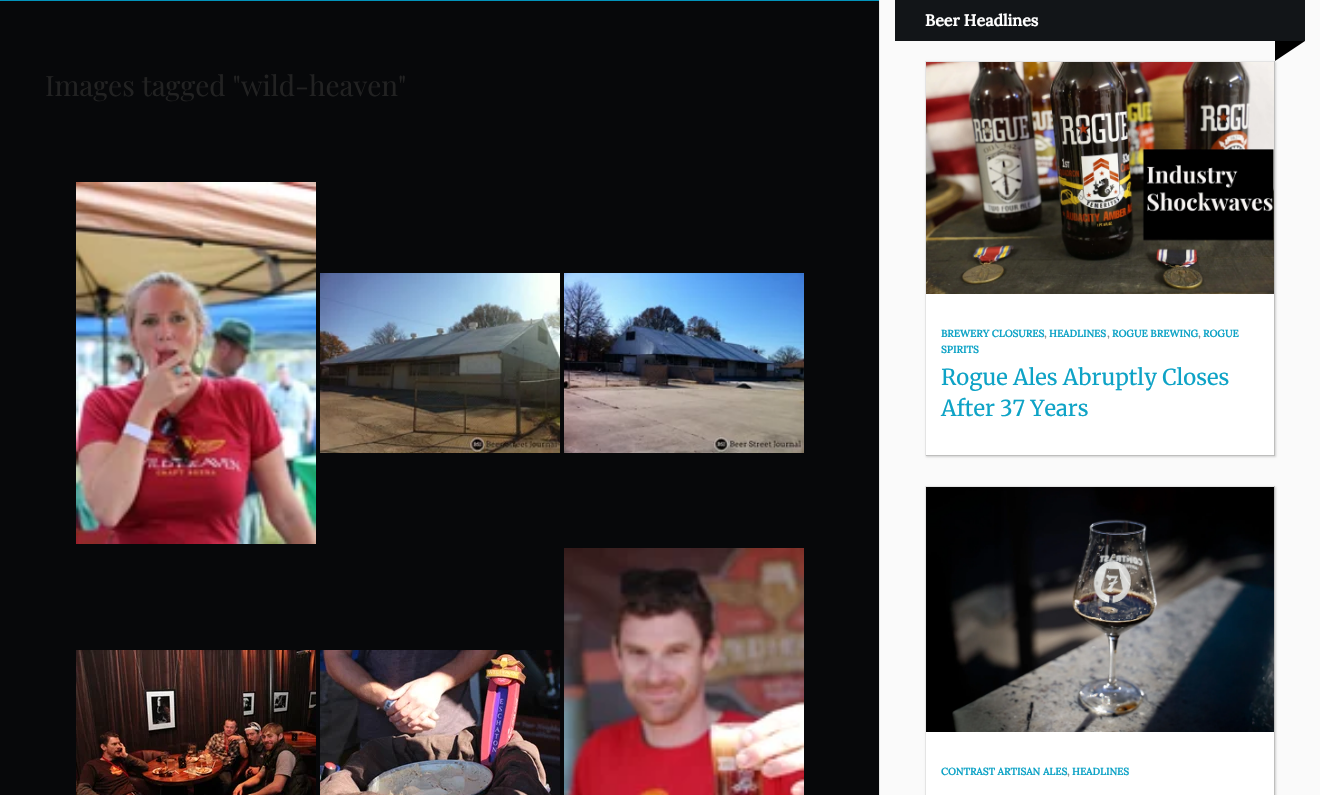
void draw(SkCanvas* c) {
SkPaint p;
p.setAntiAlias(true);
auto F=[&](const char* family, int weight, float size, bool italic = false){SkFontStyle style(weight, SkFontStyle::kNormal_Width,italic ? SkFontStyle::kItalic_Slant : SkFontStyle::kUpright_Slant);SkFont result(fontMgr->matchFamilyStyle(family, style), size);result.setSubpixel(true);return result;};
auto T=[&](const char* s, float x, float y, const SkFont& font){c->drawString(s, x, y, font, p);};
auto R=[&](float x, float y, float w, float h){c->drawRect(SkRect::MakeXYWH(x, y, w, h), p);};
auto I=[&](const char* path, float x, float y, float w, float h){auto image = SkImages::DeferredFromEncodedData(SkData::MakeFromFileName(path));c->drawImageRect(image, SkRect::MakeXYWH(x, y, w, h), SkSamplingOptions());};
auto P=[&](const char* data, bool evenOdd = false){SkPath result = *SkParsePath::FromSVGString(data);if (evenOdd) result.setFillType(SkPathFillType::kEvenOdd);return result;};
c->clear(0xff07080a);
p.setColor(0xff0293bb);
R(0,0,879,1);
p.setColor(0xffe7e7e7);
R(879,0,1,795);
auto f1 = F("Playfair Display",400,28);
p.setColor(0xff222222);
T("Images tagged \"wild-heaven\"",45,96,f1);
I("1.png",76,182,240,362);
I("2.png",320,273,240,180);
I("3.png",564,273,240,180);
I("4.png",76,650,240,145);
I("5.png",320,650,240,145);
I("6.png",564,548,240,247);
p.setColor(0xfffafafa);
R(880,0,440,795);
p.setColor(0xff121518);
R(895,0,410,41);
auto f2 = F("Lora",700,16);
p.setColor(0xffffffff);
T("Beer Headlines",925,26,f2);
p.setColor(0xffd0d0d0);
p.setMaskFilter(SkMaskFilter::MakeBlur(kNormal_SkBlurStyle, 1));
c->drawRect(SkRect::MakeXYWH(926,62,350,395),p);
p.setMaskFilter(nullptr);
p.setColor(0xff000000);
c->drawPath(P("M1275 61v-20h30z"),p);
p.setColor(0xffffffff);
R(926,294,348,161);
p.setColor(0xffe4e4e4);
R(925,61,350,1);
p.setColor(0xffbebebd);
R(1274,61,1,395);
R(925,455,350,1);
p.setColor(0xffe4e4e4);
R(925,61,1,395);
I("7.png",926,62,348,232);
auto f3 = F("Lora",700,10);
p.setColor(0xff0ea3c6);
T("BREWERY CLOSURES",941,337,f3);
p.setColor(0xff8a8c8e);
T(",",1044,337,f3);
p.setColor(0xff0ea3c6);
T("HEADLINES",1049,337,f3);
p.setColor(0xff8a8c8e);
T(",",1107,337,f3);
p.setColor(0xff0ea3c6);
T("ROGUE BREWING",1112,337,f3);
p.setColor(0xff8a8c8e);
T(",",1198,337,f3);
p.setColor(0xff0ea3c6);
T("ROGUE",1203,337,f3);
T("SPIRITS",941,353,f3);
auto f4 = F("Merriweather",400,22);
T("Rogue Ales Abruptly Closes",941,385,f4);
T("After 37 Years",941,416,f4);
p.setColor(0xffd0d0d0);
p.setMaskFilter(SkMaskFilter::MakeBlur(kNormal_SkBlurStyle, 1));
c->drawRect(SkRect::MakeXYWH(926,487,350,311),p);
p.setMaskFilter(nullptr);
p.setColor(0xffffffff);
R(926,732,348,63);
p.setColor(0xffe4e4e4);
R(925,486,350,1);
p.setColor(0xffbebebd);
R(1274,486,1,309);
p.setColor(0xffe4e4e4);
R(925,486,1,309);
I("8.png",926,487,348,245);
p.setColor(0xff0ea3c6);
T("CONTRAST ARTISAN ALES",941,775,f3);
p.setColor(0xff8a8c8e);
T(",",1067,775,f3);
p.setColor(0xff0ea3c6);
T("HEADLINES",1072,775,f3);
}
